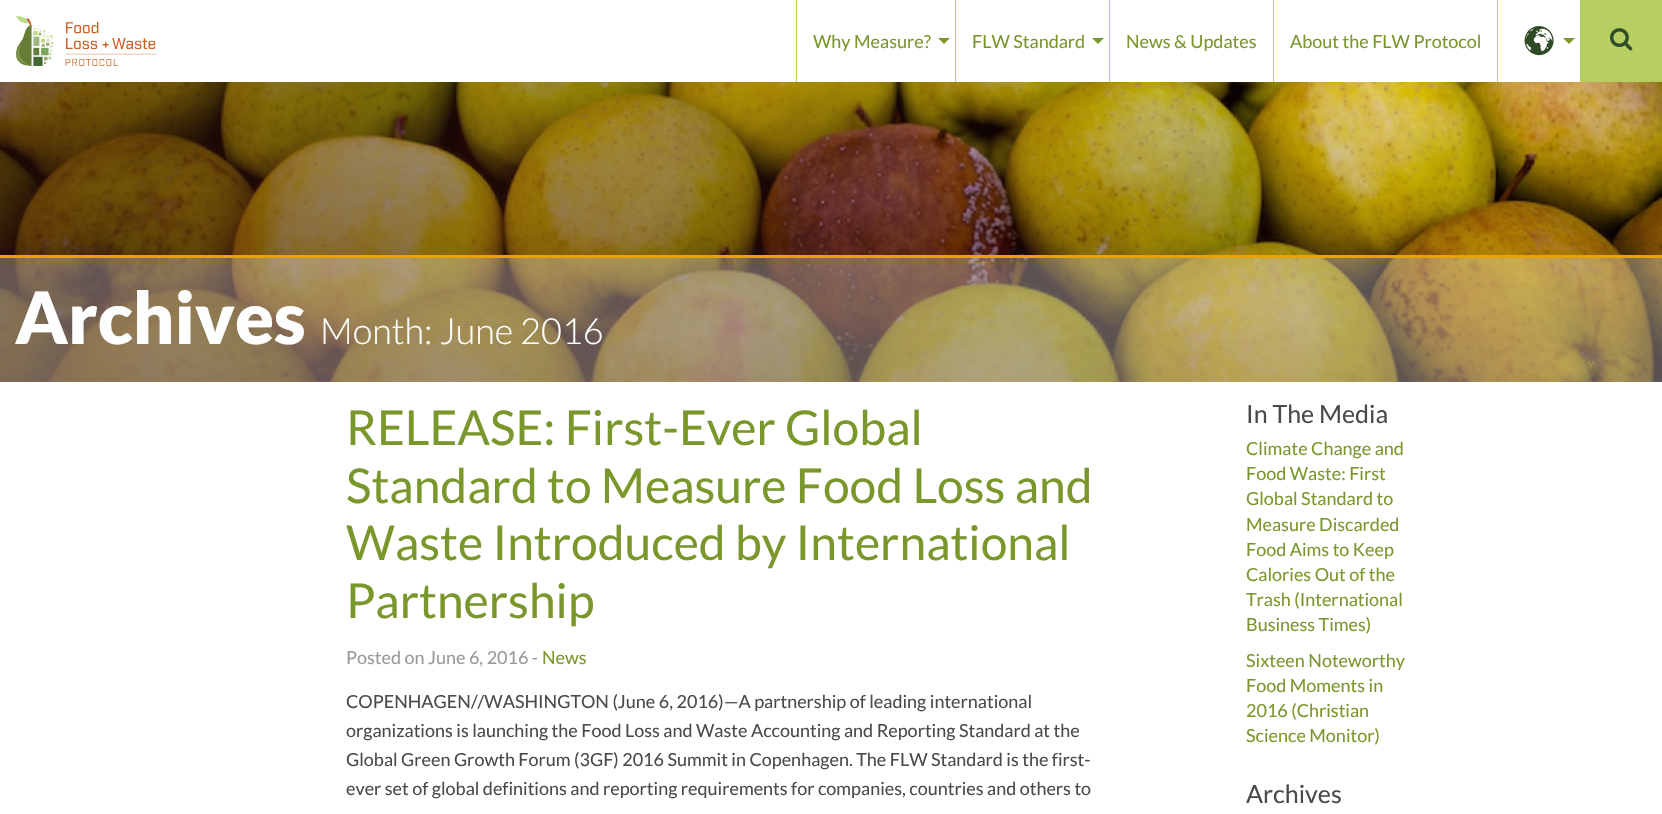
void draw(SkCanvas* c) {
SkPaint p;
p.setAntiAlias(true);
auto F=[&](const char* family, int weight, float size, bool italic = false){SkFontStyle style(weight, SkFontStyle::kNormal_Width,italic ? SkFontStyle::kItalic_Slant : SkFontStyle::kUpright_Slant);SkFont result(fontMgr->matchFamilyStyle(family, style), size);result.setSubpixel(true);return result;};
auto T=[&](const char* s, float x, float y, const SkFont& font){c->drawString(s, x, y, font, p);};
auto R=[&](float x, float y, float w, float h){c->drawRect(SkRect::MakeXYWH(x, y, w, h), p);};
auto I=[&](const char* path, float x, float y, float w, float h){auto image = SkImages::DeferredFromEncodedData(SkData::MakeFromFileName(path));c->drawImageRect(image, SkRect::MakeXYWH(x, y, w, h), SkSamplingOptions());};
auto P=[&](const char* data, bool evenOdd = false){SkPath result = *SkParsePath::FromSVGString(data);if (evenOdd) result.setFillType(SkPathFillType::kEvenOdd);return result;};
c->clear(0xffffffff);
I("1.png",16,16,140,50);
p.setColor(0xffb7ce63);
R(955,0,1,82);
R(796,0,1,82);
auto f1 = F("Lato",400,18);
p.setColor(0xff7a972c);
T("Why Measure?",813,48,f1);
c->drawPath(P("M938 38h12l-6 6z"),p);
p.setColor(0xffb7ce63);
R(1109,0,1,82);
p.setColor(0xff7a972c);
T("FLW Standard",972,48,f1);
c->drawPath(P("M1092 38h12l-6 6z"),p);
p.setColor(0xffb7ce63);
R(1273,0,1,82);
p.setColor(0xff7a972c);
T("News & Updates",1126,48,f1);
p.setColor(0xffb7ce63);
R(1497,0,1,82);
p.setColor(0xff7a972c);
T("About the FLW Protocol",1290,48,f1);
I("2.png",1524,26,30,30);
c->drawPath(P("M1563 38h12l-6 6z"),p);
p.setColor(0xffb7ce63);
R(1580,0,82,82);
I("3.png",1610,28,23,23);
I("4.png",0,82,1662,300);
{
const SkColor colors[] = {0x00330f0a,0x99330f0a};
const float stops[] = {0,1};
const SkPoint ends[] = {{883,-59}, {779,523}};
p.setShader(SkGradientShader::MakeLinear(ends, colors, stops, 2, SkTileMode::kClamp));
p.setAlpha(255);
}
R(0,82,1662,300);
p.setShader(nullptr);
p.setColor(0x4dffffff);
R(0,258,1662,124);
p.setColor(0xffe7a400);
R(0,255,1662,3);
auto f2 = F("Lato",900,72);
p.setColor(0xfffefefe);
T("Archives",15,344,f2);
auto f3 = F("Lato",300,36);
T("Month: June 2016",320,344,f3);
auto f4 = F("Lato",400,12);
p.setColor(0xffaa934f);
T("y",1588,367,f4);
auto f5 = F("Lato",400,48);
p.setColor(0xff7a972c);
T("RELEASE: First-Ever Global",346,445,f5);
T("Standard to Measure Food Loss and",346,503,f5);
T("Waste Introduced by International",346,560,f5);
T("Partnership",346,618,f5);
p.setColor(0xff999999);
T("Posted on June 6, 2016 -",346,664,f1);
p.setColor(0xff7a972c);
T("News",542,664,f1);
p.setColor(0xff4a4a4a);
T("COPENHAGEN//WASHINGTON (June 6, 2016)—A partnership of leading international",346,708,f1);
T("organizations is launching the Food Loss and Waste Accounting and Reporting Standard at the",346,737,f1);
T("Global Green Growth Forum (3GF) 2016 Summit in Copenhagen. The FLW Standard is the first-",346,766,f1);
T("ever set of global definitions and reporting requirements for companies, countries and others to",346,795,f1);
auto f6 = F("Lato",400,25);
T("In The Media",1246,423,f6);
p.setColor(0xff7a972c);
T("Climate Change and",1246,455,f1);
T("Food Waste: First",1246,480,f1);
T("Global Standard to",1246,505,f1);
T("Measure Discarded",1246,531,f1);
T("Food Aims to Keep",1246,556,f1);
T("Calories Out of the",1246,581,f1);
T("Trash (International",1246,606,f1);
T("Business Times)",1246,631,f1);
T("Sixteen Noteworthy",1246,667,f1);
T("Food Moments in",1246,692,f1);
T("2016 (Christian",1246,717,f1);
T("Science Monitor)",1246,742,f1);
p.setColor(0xff4a4a4a);
T("Archives",1246,803,f6);
}
